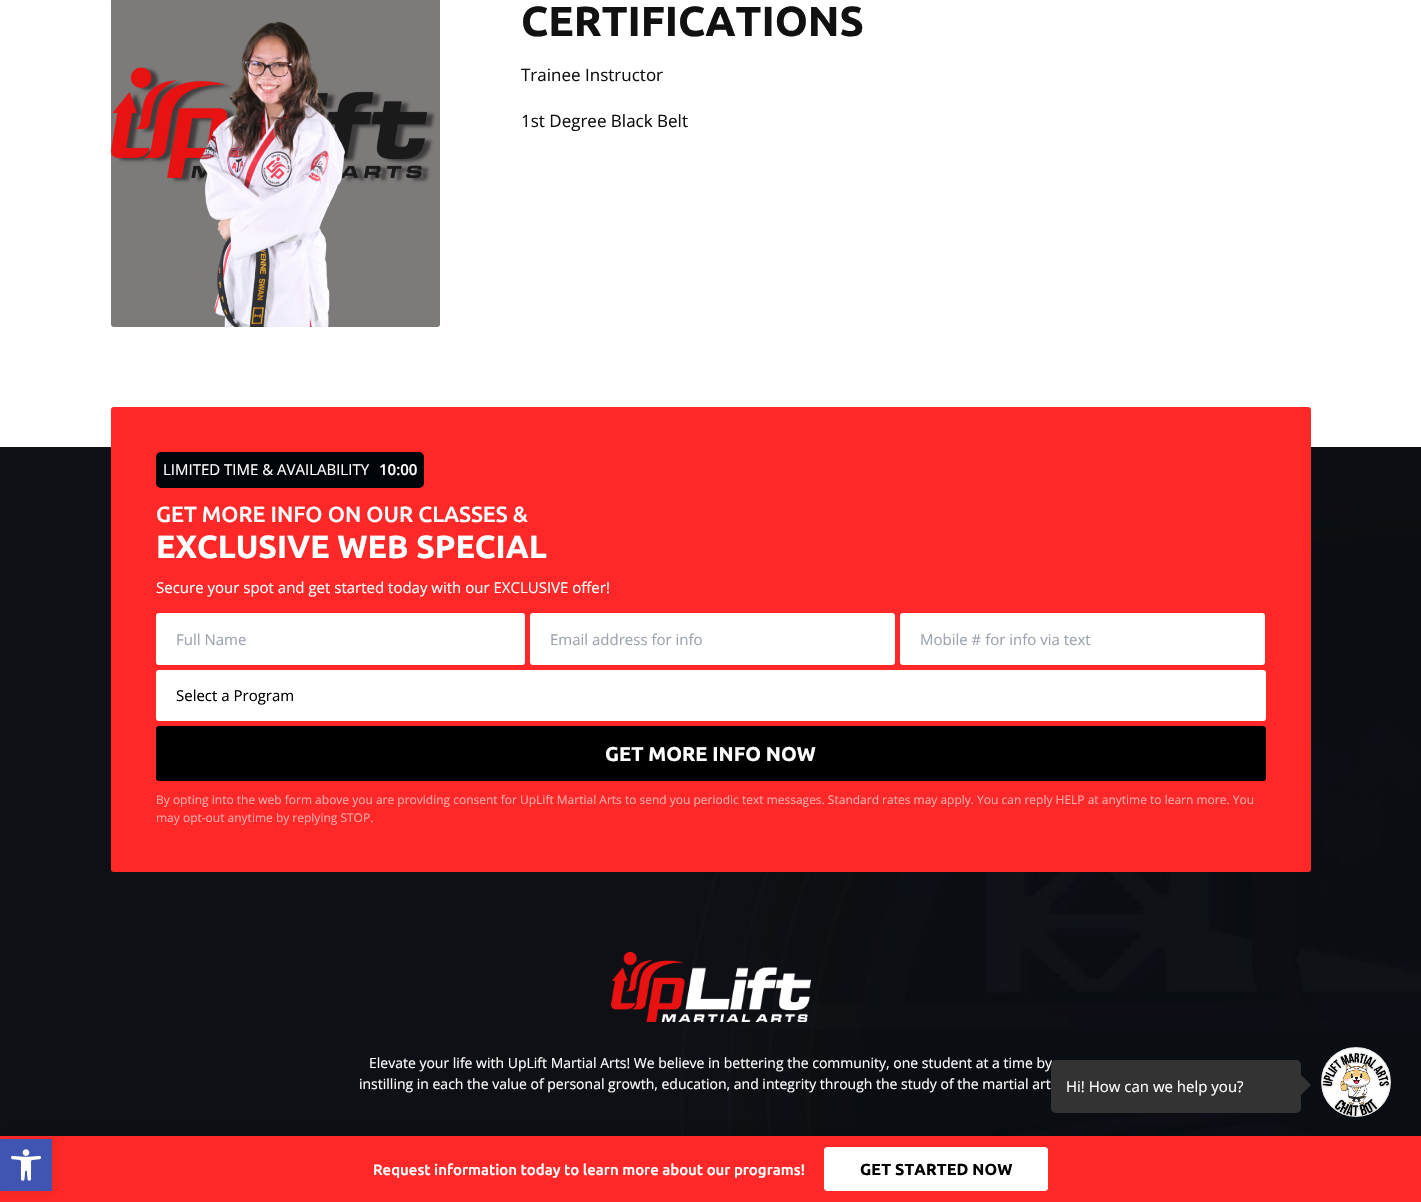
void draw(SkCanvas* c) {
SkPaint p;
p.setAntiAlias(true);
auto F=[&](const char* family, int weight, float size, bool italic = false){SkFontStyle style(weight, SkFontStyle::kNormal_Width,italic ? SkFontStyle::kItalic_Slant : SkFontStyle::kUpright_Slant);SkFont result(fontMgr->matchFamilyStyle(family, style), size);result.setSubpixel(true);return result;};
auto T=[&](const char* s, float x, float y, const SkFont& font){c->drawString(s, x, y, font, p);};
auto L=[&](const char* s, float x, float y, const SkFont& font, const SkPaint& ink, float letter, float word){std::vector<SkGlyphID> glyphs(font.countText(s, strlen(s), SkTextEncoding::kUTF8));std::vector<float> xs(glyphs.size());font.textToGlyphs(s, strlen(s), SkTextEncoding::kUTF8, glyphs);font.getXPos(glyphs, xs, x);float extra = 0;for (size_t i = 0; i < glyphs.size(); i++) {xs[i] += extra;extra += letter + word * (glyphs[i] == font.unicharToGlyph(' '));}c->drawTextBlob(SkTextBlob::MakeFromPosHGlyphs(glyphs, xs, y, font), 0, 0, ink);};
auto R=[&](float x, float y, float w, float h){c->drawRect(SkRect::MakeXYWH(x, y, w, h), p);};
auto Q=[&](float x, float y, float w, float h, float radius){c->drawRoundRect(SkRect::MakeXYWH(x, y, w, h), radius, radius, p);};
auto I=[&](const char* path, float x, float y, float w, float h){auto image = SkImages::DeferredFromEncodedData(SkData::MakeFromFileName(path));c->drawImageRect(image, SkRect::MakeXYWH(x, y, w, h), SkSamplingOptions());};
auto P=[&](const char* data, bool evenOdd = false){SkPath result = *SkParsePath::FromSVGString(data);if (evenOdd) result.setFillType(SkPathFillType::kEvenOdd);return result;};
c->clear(0xffffffff);
I("1.png",111,0,329,327);
auto f1 = F("Ubuntu",700,42);
p.setColor(0xff111111);
T("CERTIFICATIONS",521,36,f1);
auto f2 = F("Open Sans",400,17);
T("Trainee Instructor",521,81,f2);
T("1st Degree Black Belt",521,127,f2);
I("2.png",0,447,1421,689);
p.setColor(0xffff2828);
Q(111,407,1200,465,3);
p.setColor(0xff00050a);
Q(156,452,268,36,5);
auto f3 = F("Open Sans",400,15);
p.setColor(0xffffffff);
T("LIMITED TIME & AVAILABILITY",163,475,f3);
auto f4 = F("Open Sans",600,15);
T("10:00",379,475,f4);
auto f5 = F("Ubuntu",500,22);
T("GET MORE INFO ON OUR CLASSES &",156,522,f5);
auto f6 = F("Ubuntu",700,32);
T("EXCLUSIVE WEB SPECIAL",156,558,f6);
T("Secure your spot and get started today with our EXCLUSIVE offer!",156,593,f3);
Q(156,613,369,52,3);
p.setColor(0xff9ca3af);
T("Full Name",176,645,f3);
p.setColor(0xffffffff);
Q(530,613,365,52,3);
p.setColor(0xff9ca3af);
T("Email address for info",550,645,f3);
p.setColor(0xffffffff);
Q(900,613,365,52,3);
p.setColor(0xff9ca3af);
T("Mobile # for info via text",920,645,f3);
p.setColor(0xffffffff);
Q(156,670,1110,51,3);
p.setColor(0xff000000);
T("Select a Program",176,701,f3);
Q(156,726,1110,55,3);
auto f7 = F("Ubuntu",700,20);
p.setColor(0xffffffff);
T("GET MORE INFO NOW",605,761,f7);
auto f8 = F("Open Sans",400,12);
p.setColor(0xffffa9a9);
T("By opting into the web form above you are providing consent for UpLift Martial Arts to send you periodic text messages. Standard rates may apply. You can reply HELP at anytime to learn more. You",156,804,f8);
T("may opt-out anytime by replying STOP.",156,822,f8);
I("3.png",611,952,200,70);
auto f9 = F("Open Sans",400,14);
p.setColor(0xffffffff);
T("Elevate your life with UpLift Martial Arts! We believe in bettering the community, one student at a time by",369,1068,f9);
T("instilling in each the value of personal growth, education, and integrity through the study of the martial art",359,1089,f9);
p.setColor(0x33000000);
p.setMaskFilter(SkMaskFilter::MakeBlur(kNormal_SkBlurStyle, 14));
c->drawRect(SkRect::MakeXYWH(0,1136,1421,66),p);
p.setMaskFilter(nullptr);
p.setColor(0xffff2828);
R(0,1136,1421,66);
auto f10 = F("Ubuntu",500,15);
p.setColor(0xffffffff);
T("Request information today to learn more about our programs!",373,1175,f10);
c->drawRoundRect(SkRect::MakeXYWH(824.5,1147.5,223,43),2.5,2.5,p);
p.setStroke(true);
p.setStrokeWidth(1);
c->drawRoundRect(SkRect::MakeXYWH(824.5,1147.5,223,43),2.5,2.5,p);
auto f11 = F("Ubuntu",700,16);
p.setStroke(false);
p.setColor(0xff000000);
L("GET STARTED NOW",860,1175,f11,p,.1,0);
p.setColor(0xff333333);
Q(1051,1060,250,53,5);
p.setColor(0xffffffff);
T("Hi! How can we help you?",1066,1092,f3);
p.setColor(0xff333333);
c->drawPath(P("M1301 1095v-20l10 10z"),p);
I("4.png",1322,1048,68,68);
p.setStroke(true);
p.setColor(0xffdddddd);
c->drawCircle(1356,1082,34.5,p);
p.setStroke(false);
p.setColor(0x1a000000);
p.setMaskFilter(SkMaskFilter::MakeBlur(kNormal_SkBlurStyle, 5));
c->drawRect(SkRect::MakeXYWH(0,1139,52,52),p);
p.setMaskFilter(nullptr);
p.setColor(0xff4054b2);
R(0,1139,52,52);
I("5.png",11,1149,30,32);
}
